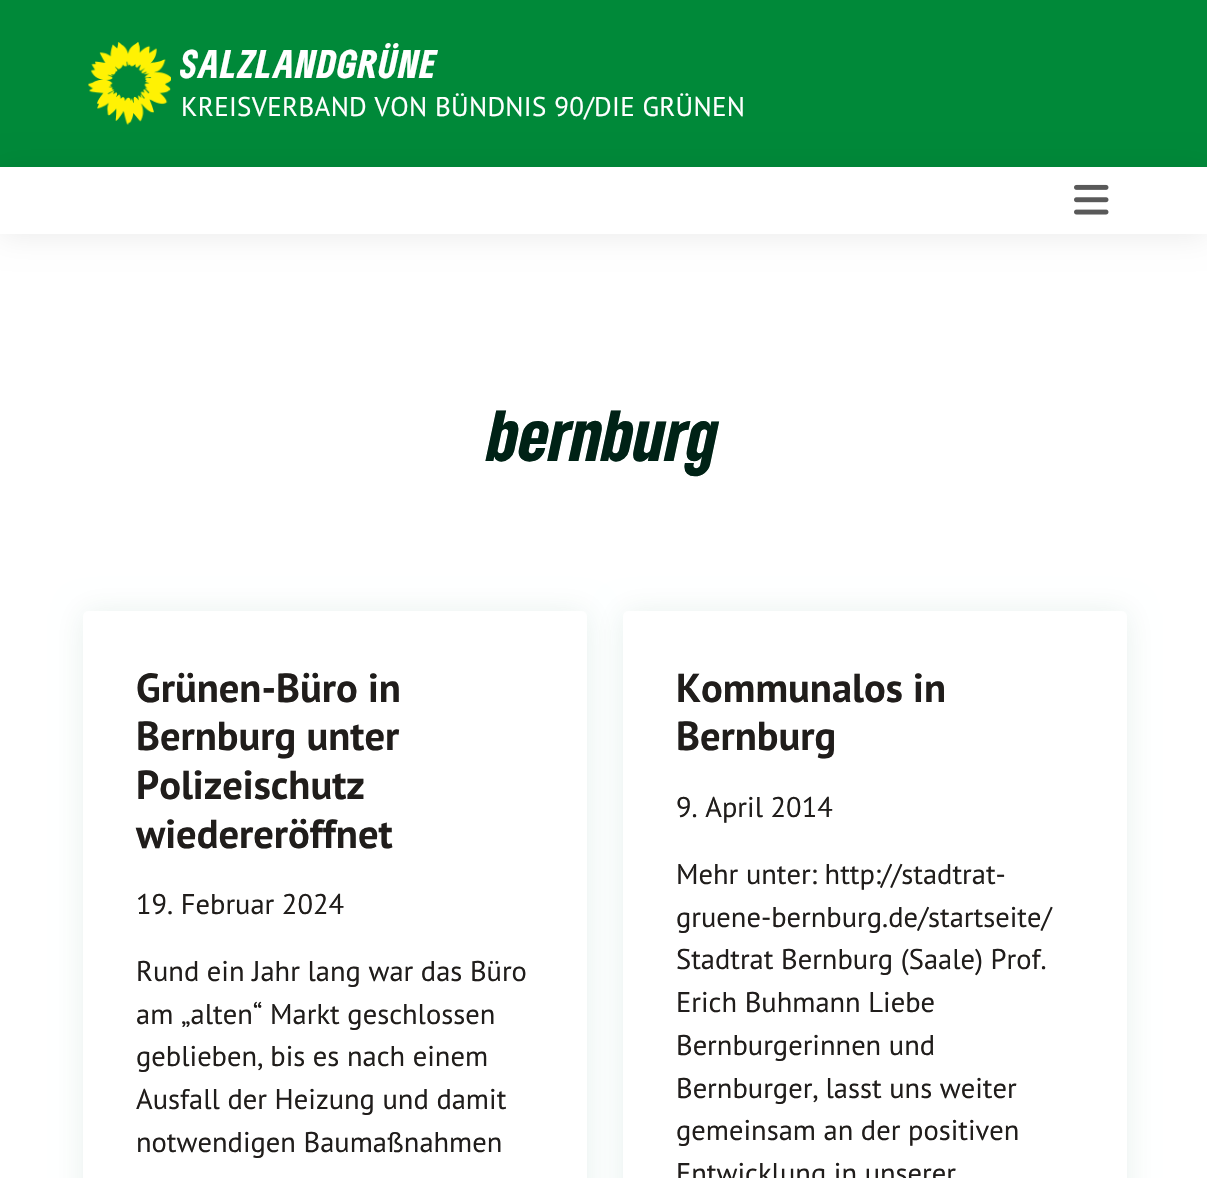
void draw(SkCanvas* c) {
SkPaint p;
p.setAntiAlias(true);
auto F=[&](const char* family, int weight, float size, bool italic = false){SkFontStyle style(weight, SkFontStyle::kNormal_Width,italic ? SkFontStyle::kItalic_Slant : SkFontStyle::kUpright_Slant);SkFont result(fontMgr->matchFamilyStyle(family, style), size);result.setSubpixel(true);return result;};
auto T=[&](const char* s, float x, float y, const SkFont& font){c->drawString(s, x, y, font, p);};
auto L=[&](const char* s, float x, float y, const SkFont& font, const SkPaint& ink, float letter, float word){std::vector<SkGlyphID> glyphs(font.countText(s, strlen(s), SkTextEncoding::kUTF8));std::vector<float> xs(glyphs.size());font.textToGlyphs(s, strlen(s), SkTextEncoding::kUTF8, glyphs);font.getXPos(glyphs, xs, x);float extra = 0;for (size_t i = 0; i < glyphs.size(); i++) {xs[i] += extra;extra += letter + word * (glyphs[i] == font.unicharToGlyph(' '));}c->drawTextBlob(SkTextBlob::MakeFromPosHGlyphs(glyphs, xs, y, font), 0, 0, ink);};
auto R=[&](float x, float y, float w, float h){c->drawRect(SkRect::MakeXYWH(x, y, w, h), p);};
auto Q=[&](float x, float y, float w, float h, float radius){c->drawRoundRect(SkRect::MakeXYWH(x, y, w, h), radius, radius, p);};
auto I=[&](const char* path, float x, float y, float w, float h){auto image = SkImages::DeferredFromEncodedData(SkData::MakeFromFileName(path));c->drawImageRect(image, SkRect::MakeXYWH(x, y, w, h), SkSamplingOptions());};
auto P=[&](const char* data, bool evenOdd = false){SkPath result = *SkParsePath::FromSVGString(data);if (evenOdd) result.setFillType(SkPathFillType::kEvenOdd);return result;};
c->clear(0xffffffff);
p.setColor(0xff008939);
R(0,0,1207,167);
I("1.png",88,42,83,83);
auto f1 = F("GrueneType",900,37.5);
p.setColor(0xffffffff);
L("SALZLANDGRÜNE",181,78,f1,p,1.5,0);
auto f2 = F("PT Sans",400,27);
L("KREISVERBAND VON BÜNDNIS 90/DIE GRÜNEN",181,116,f2,p,.3,0);
c->save();
c->clipPath(P("M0 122h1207v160h-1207zm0 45h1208v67h-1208z",true),true);
p.setColor(0x14000000);
p.setMaskFilter(SkMaskFilter::MakeBlur(kNormal_SkBlurStyle, 15));
c->drawRect(SkRect::MakeXYWH(0,168,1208,68),p);
p.setMaskFilter(nullptr);
c->restore();
I("2.png",1074,184,35,31);
auto f3 = F("GrueneType",900,67.5);
p.setColor(0xff002216);
T("bernburg",488,461,f3);
p.setColor(0x17005437);
p.setMaskFilter(SkMaskFilter::MakeBlur(kNormal_SkBlurStyle, 15));
c->drawRoundRect(SkRect::MakeXYWH(83,612,504,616),5,5,p);
p.setMaskFilter(nullptr);
p.setColor(0xffffffff);
Q(83,611,504,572,5);
auto f4 = F("PT Sans",700,40.5);
p.setColor(0xff201d1b);
T("Grünen-Büro in",136,702,f4);
T("Bernburg unter",136,750,f4);
T("Polizeischutz",136,799,f4);
T("wiedereröffnet",136,848,f4);
auto f5 = F("PT Sans",400,28.5);
T("19. Februar 2024",136,914,f5);
T("Rund ein Jahr lang war das Büro",136,981,f5);
T("am „alten“ Markt geschlossen",136,1024,f5);
T("geblieben, bis es nach einem",136,1066,f5);
T("Ausfall der Heizung und damit",136,1109,f5);
T("notwendigen Baumaßnahmen",136,1152,f5);
p.setColor(0x17005437);
p.setMaskFilter(SkMaskFilter::MakeBlur(kNormal_SkBlurStyle, 15));
c->drawRoundRect(SkRect::MakeXYWH(623,612,504,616),5,5,p);
p.setMaskFilter(nullptr);
p.setColor(0xffffffff);
Q(623,611,504,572,5);
p.setColor(0xff201d1b);
T("Kommunalos in",676,702,f4);
T("Bernburg",676,750,f4);
T("9. April 2014",676,817,f5);
T("Mehr unter: http://stadtrat-",676,884,f5);
T("gruene-bernburg.de/startseite/",676,927,f5);
T("Stadtrat Bernburg (Saale) Prof.",676,969,f5);
T("Erich Buhmann Liebe",676,1012,f5);
T("Bernburgerinnen und",676,1055,f5);
T("Bernburger, lasst uns weiter",676,1098,f5);
T("gemeinsam an der positiven",676,1140,f5);
T("Entwicklung in unserer",676,1183,f5);
}
